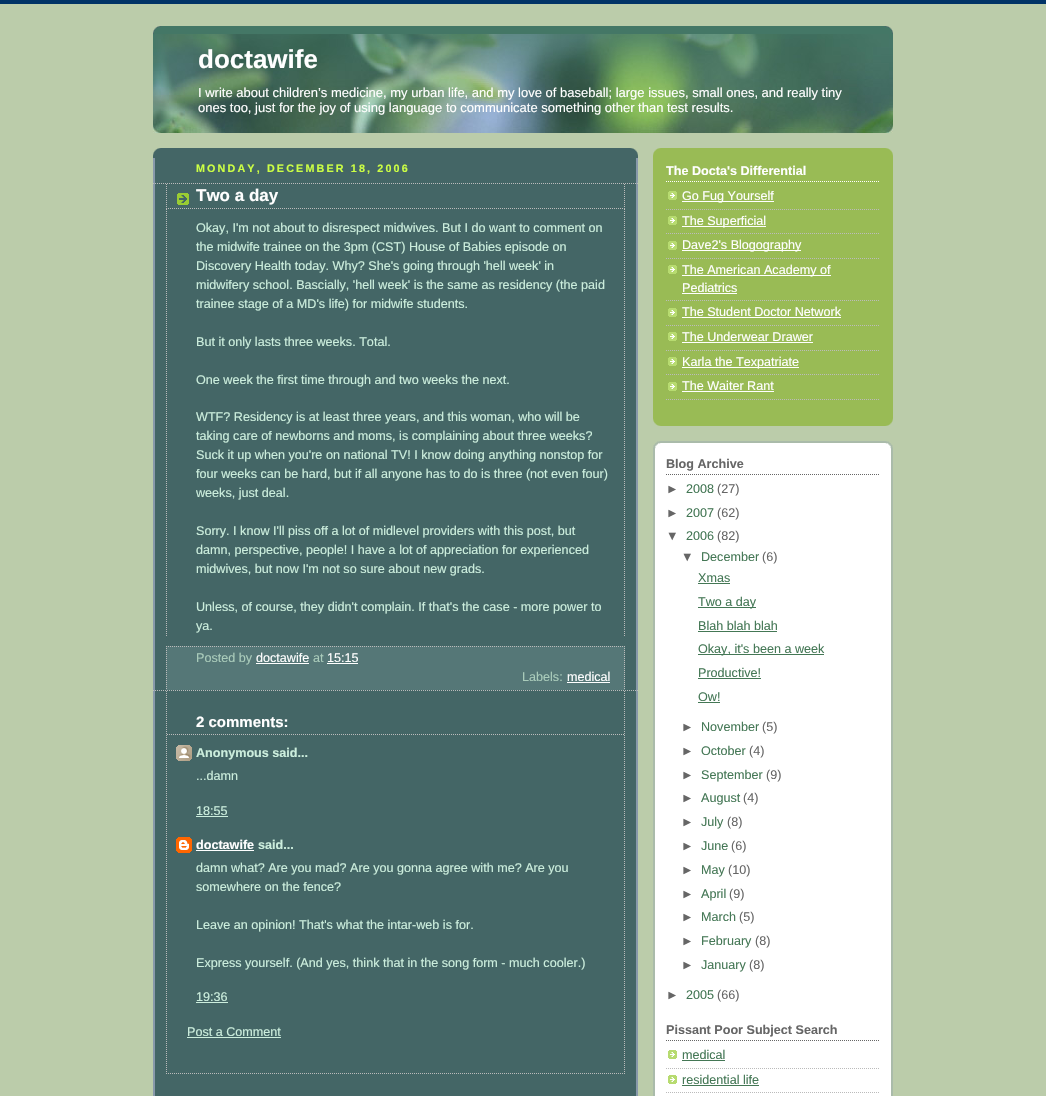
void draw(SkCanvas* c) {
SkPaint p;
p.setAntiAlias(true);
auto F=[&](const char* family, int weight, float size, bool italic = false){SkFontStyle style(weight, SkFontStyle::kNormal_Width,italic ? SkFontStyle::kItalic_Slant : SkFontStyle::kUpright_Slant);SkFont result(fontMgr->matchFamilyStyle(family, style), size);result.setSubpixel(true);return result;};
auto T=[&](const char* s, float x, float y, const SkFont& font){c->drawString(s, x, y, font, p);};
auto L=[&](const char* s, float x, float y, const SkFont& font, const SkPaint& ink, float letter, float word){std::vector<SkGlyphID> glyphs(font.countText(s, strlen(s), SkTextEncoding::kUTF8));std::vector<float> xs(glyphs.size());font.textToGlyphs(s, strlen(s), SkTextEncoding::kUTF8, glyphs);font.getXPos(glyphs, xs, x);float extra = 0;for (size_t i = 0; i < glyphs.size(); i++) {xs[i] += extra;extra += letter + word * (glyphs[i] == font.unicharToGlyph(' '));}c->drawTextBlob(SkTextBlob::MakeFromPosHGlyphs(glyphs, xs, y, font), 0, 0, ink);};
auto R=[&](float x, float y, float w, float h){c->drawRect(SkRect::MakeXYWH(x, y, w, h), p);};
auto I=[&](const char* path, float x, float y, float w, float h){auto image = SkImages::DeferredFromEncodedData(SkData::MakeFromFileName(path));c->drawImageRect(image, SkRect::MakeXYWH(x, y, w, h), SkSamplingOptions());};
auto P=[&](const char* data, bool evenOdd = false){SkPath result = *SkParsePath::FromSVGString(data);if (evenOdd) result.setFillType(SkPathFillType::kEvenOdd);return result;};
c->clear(0xffbbccaa);
p.setColor(0xff003366);
R(0,0,1046,4);
p.setColor(0xff447766);
R(154,26,738,8);
I("1.png",153,26,740,8);
I("2.png",153,34,740,99);
auto f1 = F("Liberation Sans",700,26);
p.setColor(0xffffffff);
T("doctawife",198,68,f1);
auto f2 = F("Liberation Sans",400,13);
T("I write about children’s medicine, my urban life, and my love of baseball; large issues, small ones, and really tiny",198,97,f2);
T("ones too, just for the joy of using language to communicate something other than test results.",198,112,f2);
p.setColor(0xff446666);
R(153,148,485,948);
I("3.png",153,148,485,8);
I("4.png",153,158,485,938);
auto f3 = F("Liberation Sans",700,10.75);
p.setColor(0xffccff44);
L("MONDAY, DECEMBER 18, 2006",196,172,f3,p,2.15,0);
p.setStroke(true);
p.setStrokeWidth(1);
p.setColor(0xffbbbbbb);
p.setPathEffect(SkDashPathEffect::Make({{1,1}}, 0));
c->drawPath(P("M153 183.5h485"),p);
p.setPathEffect(nullptr);
p.setPathEffect(SkDashPathEffect::Make({{1,1}}, 0));
c->drawPath(P("M153 690.5h485"),p);
p.setPathEffect(nullptr);
I("5.png",177,193,12,12);
p.setPathEffect(SkDashPathEffect::Make({{1,1}}, 0));
c->drawPath(P("M624.5 184v25"),p);
p.setPathEffect(nullptr);
p.setPathEffect(SkDashPathEffect::Make({{1,1}}, 0));
c->drawPath(P("M166 208.5h459"),p);
p.setPathEffect(nullptr);
p.setPathEffect(SkDashPathEffect::Make({{1,1}}, 0));
c->drawPath(P("M166.5 184v25"),p);
p.setPathEffect(nullptr);
auto f4 = F("Liberation Sans",700,17);
p.setStroke(false);
p.setColor(0xffffffff);
T("Two a day",196,201,f4);
p.setStroke(true);
p.setColor(0xffbbbbbb);
p.setPathEffect(SkDashPathEffect::Make({{1,1}}, 0));
c->drawPath(P("M624.5 209v428"),p);
p.setPathEffect(nullptr);
p.setPathEffect(SkDashPathEffect::Make({{1,1}}, 0));
c->drawPath(P("M166.5 209v428"),p);
p.setPathEffect(nullptr);
auto f5 = F("Liberation Sans",400,12.6);
p.setStroke(false);
p.setColor(0xffcceedd);
T("Okay, I'm not about to disrespect midwives. But I do want to comment on",196,232,f5);
T("the midwife trainee on the 3pm (CST) House of Babies episode on",196,251,f5);
T("Discovery Health today. Why? She's going through 'hell week' in",196,270,f5);
T("midwifery school. Bascially, 'hell week' is the same as residency (the paid",196,289,f5);
T("trainee stage of a MD's life) for midwife students.",196,308,f5);
T("But it only lasts three weeks. Total.",196,346,f5);
T("One week the first time through and two weeks the next.",196,384,f5);
T("WTF? Residency is at least three years, and this woman, who will be",196,421,f5);
T("taking care of newborns and moms, is complaining about three weeks?",196,440,f5);
T("Suck it up when you're on national TV! I know doing anything nonstop for",196,459,f5);
T("four weeks can be hard, but if all anyone has to do is three (not even four)",196,478,f5);
T("weeks, just deal.",196,497,f5);
T("Sorry. I know I'll piss off a lot of midlevel providers with this post, but",196,535,f5);
T("damn, perspective, people! I have a lot of appreciation for experienced",196,554,f5);
T("midwives, but now I'm not so sure about new grads.",196,573,f5);
T("Unless, of course, they didn't complain. If that's the case - more power to",196,611,f5);
T("ya.",196,630,f5);
p.setColor(0xff557777);
R(166,646,459,44);
p.setStroke(true);
p.setColor(0xffbbbbbb);
p.setPathEffect(SkDashPathEffect::Make({{1,1}}, 0));
c->drawPath(P("M166 646.5h459"),p);
p.setPathEffect(nullptr);
p.setPathEffect(SkDashPathEffect::Make({{1,1}}, 0));
c->drawPath(P("M624.5 646v44"),p);
p.setPathEffect(nullptr);
p.setPathEffect(SkDashPathEffect::Make({{1,1}}, 0));
c->drawPath(P("M166.5 646v44"),p);
p.setPathEffect(nullptr);
p.setStroke(false);
p.setColor(0xffaaccbb);
T("Posted by",196,662,f5);
p.setColor(0xffffffff);
T("doctawife",256,662,f5);
R(256,663,53,1);
p.setColor(0xffaaccbb);
T("at",313,662,f5);
p.setColor(0xffffffff);
T("15:15",327,662,f5);
R(327,663,31,1);
p.setColor(0xffaaccbb);
T("Labels:",522,681,f5);
p.setColor(0xffffffff);
T("medical",567,681,f5);
R(567,682,43,1);
p.setStroke(true);
p.setColor(0xffbbbbbb);
p.setPathEffect(SkDashPathEffect::Make({{1,1}}, 0));
c->drawPath(P("M624.5 691v383"),p);
p.setPathEffect(nullptr);
p.setPathEffect(SkDashPathEffect::Make({{1,1}}, 0));
c->drawPath(P("M166 1073.5h459"),p);
p.setPathEffect(nullptr);
p.setPathEffect(SkDashPathEffect::Make({{1,1}}, 0));
c->drawPath(P("M166.5 691v383"),p);
p.setPathEffect(nullptr);
p.setPathEffect(SkDashPathEffect::Make({{1,1}}, 0));
c->drawPath(P("M167 734.5h457"),p);
p.setPathEffect(nullptr);
auto f6 = F("Liberation Sans",700,15);
p.setStroke(false);
p.setColor(0xffffffff);
T("2 comments:",196,727,f6);
I("6.png",176,745,16,16);
auto f7 = F("Liberation Sans",700,12.6);
p.setColor(0xffcceedd);
T("Anonymous said...",196,757,f7);
T("...damn",196,780,f5);
T("18:55",196,815,f5);
R(196,816,32,1);
I("7.png",176,837,16,16);
p.setColor(0xffffffff);
T("doctawife",196,849,f7);
R(196,850,58,1);
p.setColor(0xffcceedd);
T("said...",258,849,f7);
T("damn what? Are you mad? Are you gonna agree with me? Are you",196,872,f5);
T("somewhere on the fence?",196,891,f5);
T("Leave an opinion! That's what the intar-web is for.",196,929,f5);
T("Express yourself. (And yes, think that in the song form - much cooler.)",196,967,f5);
T("19:36",196,1001,f5);
R(196,1002,32,1);
T("Post a Comment",187,1036,f5);
R(187,1037,94,1);
p.setColor(0xff99bb55);
R(653,148,240,278);
I("8.png",653,418,240,8);
I("9.png",653,148,240,8);
p.setStroke(true);
p.setColor(0xffffffff);
p.setPathEffect(SkDashPathEffect::Make({{1,1}}, 0));
c->drawPath(P("M666 181.5h214"),p);
p.setPathEffect(nullptr);
p.setStroke(false);
T("The Docta's Differential",666,175,f7);
I("10.png",668,191,9,9);
p.setStroke(true);
p.setColor(0xffbbbbbb);
p.setPathEffect(SkDashPathEffect::Make({{1,1}}, 0));
c->drawPath(P("M666 209.5h214"),p);
p.setPathEffect(nullptr);
p.setStroke(false);
p.setColor(0xffffffff);
R(682,201,92,1);
T("Go Fug Yourself",682,200,f5);
I("10.png",668,216,9,9);
p.setStroke(true);
p.setColor(0xffbbbbbb);
p.setPathEffect(SkDashPathEffect::Make({{1,1}}, 0));
c->drawPath(P("M666 233.5h214"),p);
p.setPathEffect(nullptr);
p.setStroke(false);
p.setColor(0xffffffff);
R(682,226,84,1);
T("The Superficial",682,225,f5);
I("10.png",668,241,9,9);
p.setStroke(true);
p.setColor(0xffbbbbbb);
p.setPathEffect(SkDashPathEffect::Make({{1,1}}, 0));
c->drawPath(P("M666 258.5h214"),p);
p.setPathEffect(nullptr);
p.setStroke(false);
p.setColor(0xffffffff);
R(682,250,119,1);
T("Dave2's Blogography",682,249,f5);
I("10.png",668,265,9,9);
p.setStroke(true);
p.setColor(0xffbbbbbb);
p.setPathEffect(SkDashPathEffect::Make({{1,1}}, 0));
c->drawPath(P("M666 300.5h214"),p);
p.setPathEffect(nullptr);
p.setStroke(false);
p.setColor(0xffffffff);
R(682,275,149,1);
T("The American Academy of",682,274,f5);
T("Pediatrics",682,292,f5);
R(682,293,55,1);
I("10.png",668,308,9,9);
p.setStroke(true);
p.setColor(0xffbbbbbb);
p.setPathEffect(SkDashPathEffect::Make({{1,1}}, 0));
c->drawPath(P("M666 325.5h214"),p);
p.setPathEffect(nullptr);
p.setStroke(false);
p.setColor(0xffffffff);
T("The Student Doctor Network",682,316,f5);
R(682,317,159,1);
I("10.png",668,332,9,9);
p.setStroke(true);
p.setColor(0xffbbbbbb);
p.setPathEffect(SkDashPathEffect::Make({{1,1}}, 0));
c->drawPath(P("M666 350.5h214"),p);
p.setPathEffect(nullptr);
p.setStroke(false);
p.setColor(0xffffffff);
T("The Underwear Drawer",682,341,f5);
R(682,342,131,1);
I("10.png",668,357,9,9);
p.setStroke(true);
p.setColor(0xffbbbbbb);
p.setPathEffect(SkDashPathEffect::Make({{1,1}}, 0));
c->drawPath(P("M666 374.5h214"),p);
p.setPathEffect(nullptr);
p.setStroke(false);
p.setColor(0xffffffff);
R(682,367,117,1);
T("Karla the Texpatriate",682,366,f5);
I("10.png",668,382,9,9);
p.setStroke(true);
p.setColor(0xffbbbbbb);
p.setPathEffect(SkDashPathEffect::Make({{1,1}}, 0));
c->drawPath(P("M666 399.5h214"),p);
p.setPathEffect(nullptr);
p.setStroke(false);
p.setColor(0xffffffff);
T("The Waiter Rant",682,390,f5);
R(682,391,92,1);
R(655,443,236,653);
I("11.png",653,441,240,30);
I("12.png",653,471,240,625);
p.setStroke(true);
p.setColor(0xff666666);
p.setPathEffect(SkDashPathEffect::Make({{1,1}}, 0));
c->drawPath(P("M666 474.5h214"),p);
p.setPathEffect(nullptr);
p.setStroke(false);
T("Blog Archive",666,468,f7);
T("►",666,493,f5);
p.setColor(0xff447755);
T("2008",686,493,f5);
p.setColor(0xff666666);
T("(27)",717,493,f5);
T("►",666,517,f5);
p.setColor(0xff447755);
T("2007",686,517,f5);
p.setColor(0xff666666);
T("(62)",717,517,f5);
T("▼",666,540,f5);
p.setColor(0xff447755);
T("2006",686,540,f5);
p.setColor(0xff666666);
T("(82)",717,540,f5);
T("▼",681,561,f5);
p.setColor(0xff447755);
T("December",701,561,f5);
p.setColor(0xff666666);
T("(6)",762,561,f5);
p.setColor(0xff447755);
T("Xmas",698,582,f5);
R(698,583,32,1);
R(698,607,58,1);
T("Two a day",698,606,f5);
T("Blah blah blah",698,630,f5);
R(698,631,79,1);
R(698,654,126,1);
T("Okay, it's been a week",698,653,f5);
T("Productive!",698,677,f5);
R(698,678,63,1);
T("Ow!",698,701,f5);
R(698,702,22,1);
p.setColor(0xff666666);
T("►",681,731,f5);
p.setColor(0xff447755);
T("November",701,731,f5);
p.setColor(0xff666666);
T("(5)",762,731,f5);
T("►",681,755,f5);
p.setColor(0xff447755);
T("October",701,755,f5);
p.setColor(0xff666666);
T("(4)",749,755,f5);
T("►",681,779,f5);
p.setColor(0xff447755);
T("September",701,779,f5);
p.setColor(0xff666666);
T("(9)",766,779,f5);
T("►",681,802,f5);
p.setColor(0xff447755);
T("August",701,802,f5);
p.setColor(0xff666666);
T("(4)",743,802,f5);
T("►",681,826,f5);
p.setColor(0xff447755);
T("July",701,826,f5);
p.setColor(0xff666666);
T("(8)",727,826,f5);
T("►",681,850,f5);
p.setColor(0xff447755);
T("June",701,850,f5);
p.setColor(0xff666666);
T("(6)",731,850,f5);
T("►",681,874,f5);
p.setColor(0xff447755);
T("May",701,874,f5);
p.setColor(0xff666666);
T("(10)",728,874,f5);
T("►",681,898,f5);
p.setColor(0xff447755);
T("April",701,898,f5);
p.setColor(0xff666666);
T("(9)",729,898,f5);
T("►",681,921,f5);
p.setColor(0xff447755);
T("March",701,921,f5);
p.setColor(0xff666666);
T("(5)",739,921,f5);
T("►",681,945,f5);
p.setColor(0xff447755);
T("February",701,945,f5);
p.setColor(0xff666666);
T("(8)",755,945,f5);
T("►",681,969,f5);
p.setColor(0xff447755);
T("January",701,969,f5);
p.setColor(0xff666666);
T("(8)",749,969,f5);
T("►",666,999,f5);
p.setColor(0xff447755);
T("2005",686,999,f5);
p.setColor(0xff666666);
T("(66)",717,999,f5);
p.setStroke(true);
p.setPathEffect(SkDashPathEffect::Make({{1,1}}, 0));
c->drawPath(P("M666 1040.5h214"),p);
p.setPathEffect(nullptr);
p.setStroke(false);
T("Pissant Poor Subject Search",666,1034,f7);
I("13.png",668,1050,9,9);
p.setStroke(true);
p.setColor(0xffbbbbbb);
p.setPathEffect(SkDashPathEffect::Make({{1,1}}, 0));
c->drawPath(P("M666 1068.5h214"),p);
p.setPathEffect(nullptr);
p.setStroke(false);
p.setColor(0xff447755);
T("medical",682,1059,f5);
R(682,1060,43,1);
I("13.png",668,1075,9,9);
p.setStroke(true);
p.setColor(0xffbbbbbb);
p.setPathEffect(SkDashPathEffect::Make({{1,1}}, 0));
c->drawPath(P("M666 1092.5h214"),p);
p.setPathEffect(nullptr);
p.setStroke(false);
p.setColor(0xff447755);
T("residential life",682,1084,f5);
R(682,1085,77,1);
}
